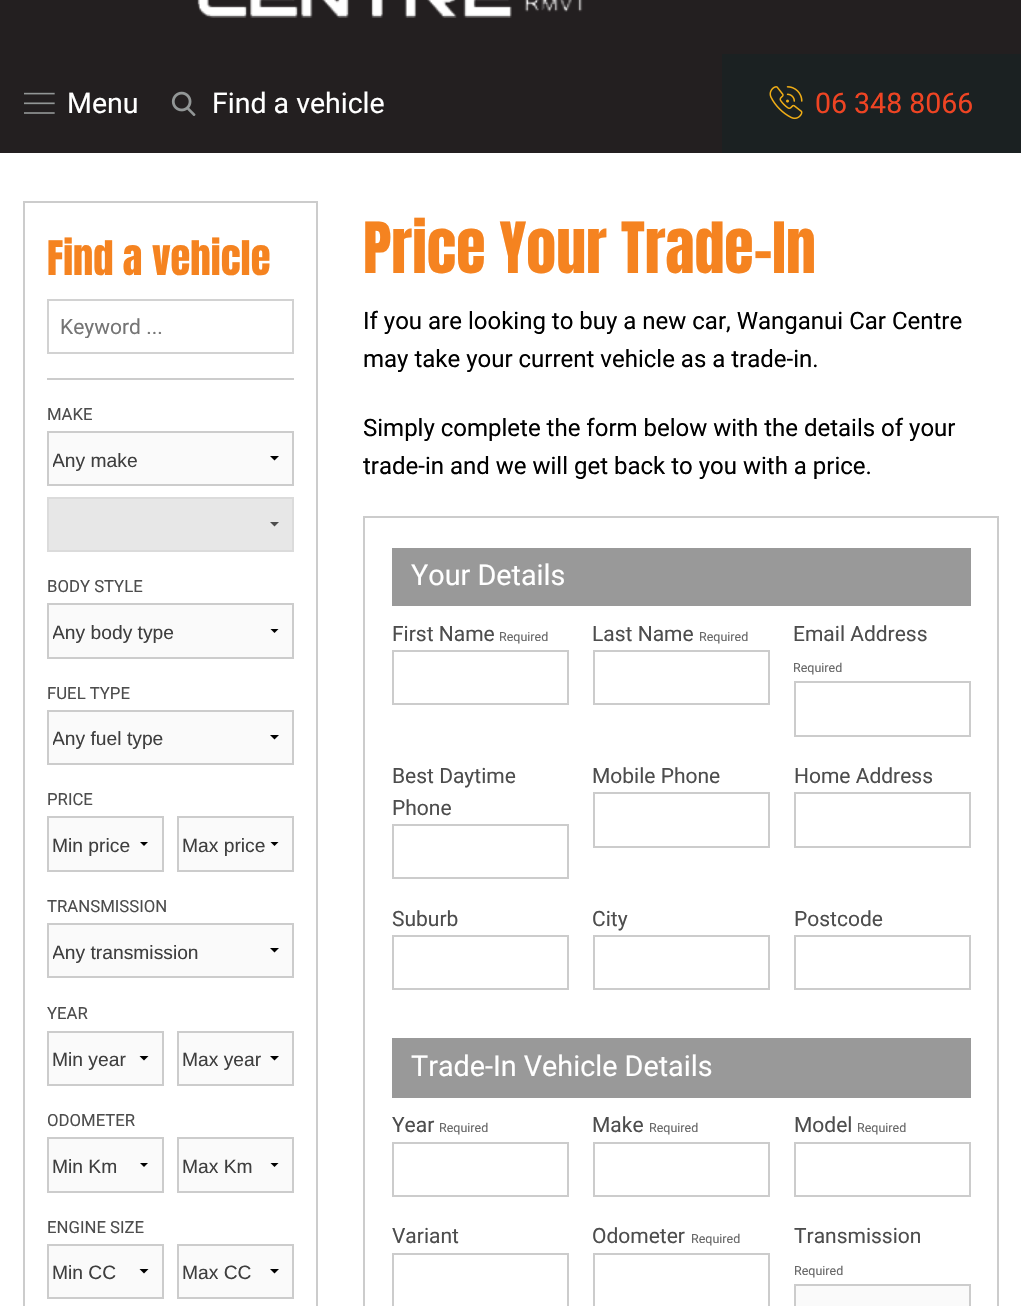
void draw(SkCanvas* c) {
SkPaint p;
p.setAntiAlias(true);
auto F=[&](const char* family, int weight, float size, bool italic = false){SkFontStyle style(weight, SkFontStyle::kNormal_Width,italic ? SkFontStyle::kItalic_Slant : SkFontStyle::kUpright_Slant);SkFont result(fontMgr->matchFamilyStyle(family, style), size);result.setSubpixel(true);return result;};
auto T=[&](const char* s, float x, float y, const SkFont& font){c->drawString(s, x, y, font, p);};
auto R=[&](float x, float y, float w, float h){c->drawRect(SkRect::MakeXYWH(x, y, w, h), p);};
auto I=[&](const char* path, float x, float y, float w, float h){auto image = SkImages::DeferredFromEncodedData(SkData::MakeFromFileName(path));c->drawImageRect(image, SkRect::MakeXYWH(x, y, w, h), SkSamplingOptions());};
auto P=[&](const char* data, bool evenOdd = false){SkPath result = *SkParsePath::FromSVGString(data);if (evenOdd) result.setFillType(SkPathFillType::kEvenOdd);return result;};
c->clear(0xffffffff);
p.setColor(0xff231f20);
R(0,0,1021,153);
I("1.png",197,0,386,18);
I("2.png",24,92,31,22);
auto f1 = F("Roboto",400,28.5);
p.setColor(0xffffffff);
T("Menu",67,113,f1);
I("3.png",171,91,25,25);
T("Find a vehicle",212,113,f1);
p.setColor(0xff1b2122);
R(722,54,299,99);
I("4.png",769,86,34,34);
p.setColor(0xffef4423);
T("06 348 8066",815,113,f1);
p.setStroke(true);
p.setStrokeWidth(2);
p.setColor(0xffcccccc);
c->drawRect(SkRect::MakeXYWH(24,202,293,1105),p);
auto f2 = F("Anton",400,40.5);
p.setStroke(false);
p.setColor(0xfff58320);
T("Find a vehicle",47,275,f2);
p.setStroke(true);
p.setColor(0xffd2d2d2);
c->drawRect(SkRect::MakeXYWH(48,300,245,53),p);
c->save();
c->clipRect(SkRect::MakeXYWH(60,314,161,24));
auto f3 = F("Roboto",400,21);
p.setStroke(false);
p.setColor(0xff757575);
T("Keyword ...",60,334,f3);
c->restore();
p.setColor(0xffcccccc);
R(47,378,247,2);
auto f4 = F("Roboto",400,16.75);
p.setColor(0xff4d4d4d);
T("MAKE",47,420,f4);
p.setColor(0xfffafafa);
R(49,433,243,51);
p.setColor(0xff000000);
c->drawPath(P("M279 456l-4.5 4.5l-4.5-4.5z"),p);
p.setStroke(true);
p.setColor(0xffcccccc);
c->drawRect(SkRect::MakeXYWH(48,432,245,53),p);
c->save();
c->clipRect(SkRect::MakeXYWH(53,432,235,56));
auto f5 = F("Liberation Sans",400,19.25);
p.setStroke(false);
p.setColor(0xff3f3f3f);
T("Any make",52,467,f5);
c->restore();
p.setColor(0xffe7e7e7);
R(49,499,243,51);
p.setColor(0xff4d4d4d);
c->drawPath(P("M279 522l-4.5 4.5l-4.5-4.5z"),p);
p.setStroke(true);
p.setColor(0xffdbdbdb);
c->drawRect(SkRect::MakeXYWH(48,498,245,53),p);
p.setStroke(false);
p.setColor(0xff4d4d4d);
T("BODY STYLE",47,592,f4);
p.setColor(0xfffafafa);
R(49,605,243,52);
c->save();
c->clipRect(SkRect::MakeXYWH(257,629,36,5));
p.setColor(0xff000000);
c->drawPath(P("M279 628.5l-4.5 4.5l-4.5-4.5z"),p);
c->restore();
p.setStroke(true);
p.setColor(0xffcccccc);
c->drawRect(SkRect::MakeXYWH(48,604,245,54),p);
c->save();
c->clipRect(SkRect::MakeXYWH(53,605,235,55));
p.setStroke(false);
p.setColor(0xff3f3f3f);
T("Any body type",52,639,f5);
c->restore();
p.setColor(0xff4d4d4d);
T("FUEL TYPE",47,699,f4);
p.setColor(0xfffafafa);
R(49,712,243,51);
p.setColor(0xff000000);
c->drawPath(P("M279 735l-4.5 4.5l-4.5-4.5z"),p);
p.setStroke(true);
p.setColor(0xffcccccc);
c->drawRect(SkRect::MakeXYWH(48,711,245,53),p);
c->save();
c->clipRect(SkRect::MakeXYWH(53,711,235,56));
p.setStroke(false);
p.setColor(0xff3f3f3f);
T("Any fuel type",52,745,f5);
c->restore();
p.setColor(0xff4d4d4d);
T("PRICE",47,805,f4);
p.setColor(0xfffafafa);
R(49,818,113,52);
c->save();
c->clipRect(SkRect::MakeXYWH(126,842,36,5));
p.setColor(0xff000000);
c->drawPath(P("M148.5 841.5l-4.5 4.5l-4.5-4.5z"),p);
c->restore();
p.setStroke(true);
p.setColor(0xffcccccc);
c->drawRect(SkRect::MakeXYWH(48,817,115,54),p);
p.setStroke(false);
p.setColor(0xff3f3f3f);
T("Min price",52,852,f5);
p.setColor(0xfffafafa);
R(179,818,113,52);
c->save();
c->clipRect(SkRect::MakeXYWH(257,842,36,5));
p.setColor(0xff000000);
c->drawPath(P("M279 841.5l-4.5 4.5l-4.5-4.5z"),p);
c->restore();
p.setStroke(true);
p.setColor(0xffcccccc);
c->drawRect(SkRect::MakeXYWH(178,817,115,54),p);
p.setStroke(false);
p.setColor(0xff3f3f3f);
T("Max price",182,852,f5);
p.setColor(0xff4d4d4d);
T("TRANSMISSION",47,912,f4);
p.setColor(0xfffafafa);
R(49,925,243,51);
p.setColor(0xff000000);
c->drawPath(P("M279 948l-4.5 4.5l-4.5-4.5z"),p);
p.setStroke(true);
p.setColor(0xffcccccc);
c->drawRect(SkRect::MakeXYWH(48,924,245,53),p);
c->save();
c->clipRect(SkRect::MakeXYWH(53,924,235,56));
p.setStroke(false);
p.setColor(0xff3f3f3f);
T("Any transmission",52,959,f5);
c->restore();
p.setColor(0xff4d4d4d);
T("YEAR",47,1019,f4);
p.setColor(0xfffafafa);
R(49,1033,113,51);
p.setColor(0xff000000);
c->drawPath(P("M148.5 1056l-4.5 4.5l-4.5-4.5z"),p);
p.setStroke(true);
p.setColor(0xffcccccc);
c->drawRect(SkRect::MakeXYWH(48,1032,115,53),p);
p.setStroke(false);
p.setColor(0xff3f3f3f);
T("Min year",52,1066,f5);
p.setColor(0xfffafafa);
R(179,1033,113,51);
p.setColor(0xff000000);
c->drawPath(P("M279 1056l-4.5 4.5l-4.5-4.5z"),p);
p.setStroke(true);
p.setColor(0xffcccccc);
c->drawRect(SkRect::MakeXYWH(178,1032,115,53),p);
p.setStroke(false);
p.setColor(0xff3f3f3f);
T("Max year",182,1066,f5);
p.setColor(0xff4d4d4d);
T("ODOMETER",47,1126,f4);
p.setColor(0xfffafafa);
R(49,1139,113,52);
c->save();
c->clipRect(SkRect::MakeXYWH(126,1163,36,5));
p.setColor(0xff000000);
c->drawPath(P("M148.5 1162.5l-4.5 4.5l-4.5-4.5z"),p);
c->restore();
p.setStroke(true);
p.setColor(0xffcccccc);
c->drawRect(SkRect::MakeXYWH(48,1138,115,54),p);
p.setStroke(false);
p.setColor(0xff3f3f3f);
T("Min Km",52,1173,f5);
p.setColor(0xfffafafa);
R(179,1139,113,52);
c->save();
c->clipRect(SkRect::MakeXYWH(257,1163,36,5));
p.setColor(0xff000000);
c->drawPath(P("M279 1162.5l-4.5 4.5l-4.5-4.5z"),p);
c->restore();
p.setStroke(true);
p.setColor(0xffcccccc);
c->drawRect(SkRect::MakeXYWH(178,1138,115,54),p);
p.setStroke(false);
p.setColor(0xff3f3f3f);
T("Max Km",182,1173,f5);
p.setColor(0xff4d4d4d);
T("ENGINE SIZE",47,1233,f4);
p.setColor(0xfffafafa);
R(49,1246,113,51);
p.setColor(0xff000000);
c->drawPath(P("M148.5 1269l-4.5 4.5l-4.5-4.5z"),p);
p.setStroke(true);
p.setColor(0xffcccccc);
c->drawRect(SkRect::MakeXYWH(48,1245,115,53),p);
p.setStroke(false);
p.setColor(0xff3f3f3f);
T("Min CC",52,1279,f5);
p.setColor(0xfffafafa);
R(179,1246,113,51);
p.setColor(0xff000000);
c->drawPath(P("M279 1269l-4.5 4.5l-4.5-4.5z"),p);
p.setStroke(true);
p.setColor(0xffcccccc);
c->drawRect(SkRect::MakeXYWH(178,1245,115,53),p);
p.setStroke(false);
p.setColor(0xff3f3f3f);
T("Max CC",182,1279,f5);
auto f6 = F("Anton",400,60);
p.setColor(0xfff58320);
T("Price Your Trade-In",363,273,f6);
auto f7 = F("Roboto",400,24);
p.setColor(0xff000000);
T("If you are looking to buy a new car, Wanganui Car Centre",363,329,f7);
T("may take your current vehicle as a trade-in.",363,367,f7);
T("Simply complete the form below with the details of your",363,436,f7);
T("trade-in and we will get back to you with a price.",363,474,f7);
p.setStroke(true);
p.setColor(0xffcccccc);
c->drawRect(SkRect::MakeXYWH(364,517,634,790),p);
p.setStroke(false);
p.setColor(0xff999999);
R(392,548,579,58);
auto f8 = F("Roboto",400,28.75);
p.setColor(0xffffffff);
T("Your Details",411,585,f8);
p.setColor(0xff4d4d4d);
T("First Name",392,641,f3);
auto f9 = F("Roboto",400,12.5);
p.setColor(0xff676767);
T("Required",499,641,f9);
p.setStroke(true);
p.setColor(0xffcccccc);
c->drawRect(SkRect::MakeXYWH(393,651,175,53),p);
p.setStroke(false);
p.setColor(0xff4d4d4d);
T("Last Name",592,641,f3);
p.setColor(0xff676767);
T("Required",699,641,f9);
p.setStroke(true);
p.setColor(0xffcccccc);
c->drawRect(SkRect::MakeXYWH(594,651,175,53),p);
p.setStroke(false);
p.setColor(0xff4d4d4d);
T("Email Address",793,641,f3);
p.setColor(0xff676767);
T("Required",793,672,f9);
p.setStroke(true);
p.setColor(0xffcccccc);
c->drawRect(SkRect::MakeXYWH(795,682,175,54),p);
p.setStroke(false);
p.setColor(0xff4d4d4d);
T("Best Daytime",392,783,f3);
T("Phone",392,815,f3);
p.setStroke(true);
p.setColor(0xffcccccc);
c->drawRect(SkRect::MakeXYWH(393,825,175,53),p);
p.setStroke(false);
p.setColor(0xff4d4d4d);
T("Mobile Phone",592,783,f3);
p.setStroke(true);
p.setColor(0xffcccccc);
c->drawRect(SkRect::MakeXYWH(594,793,175,54),p);
p.setStroke(false);
p.setColor(0xff4d4d4d);
T("Home Address",794,783,f3);
p.setStroke(true);
p.setColor(0xffcccccc);
c->drawRect(SkRect::MakeXYWH(795,793,175,54),p);
p.setStroke(false);
p.setColor(0xff4d4d4d);
T("Suburb",392,926,f3);
p.setStroke(true);
p.setColor(0xffcccccc);
c->drawRect(SkRect::MakeXYWH(393,936,175,53),p);
p.setStroke(false);
p.setColor(0xff4d4d4d);
T("City",592,926,f3);
p.setStroke(true);
p.setColor(0xffcccccc);
c->drawRect(SkRect::MakeXYWH(594,936,175,53),p);
p.setStroke(false);
p.setColor(0xff4d4d4d);
T("Postcode",794,926,f3);
p.setStroke(true);
p.setColor(0xffcccccc);
c->drawRect(SkRect::MakeXYWH(795,936,175,53),p);
p.setStroke(false);
p.setColor(0xff999999);
R(392,1038,579,60);
p.setColor(0xffffffff);
T("Trade-In Vehicle Details",411,1076,f8);
p.setColor(0xff4d4d4d);
T("Year",392,1132,f3);
p.setColor(0xff676767);
T("Required",439,1132,f9);
p.setStroke(true);
p.setColor(0xffcccccc);
c->drawRect(SkRect::MakeXYWH(393,1143,175,53),p);
p.setStroke(false);
p.setColor(0xff4d4d4d);
T("Make",592,1132,f3);
p.setColor(0xff676767);
T("Required",649,1132,f9);
p.setStroke(true);
p.setColor(0xffcccccc);
c->drawRect(SkRect::MakeXYWH(594,1143,175,53),p);
p.setStroke(false);
p.setColor(0xff4d4d4d);
T("Model",794,1132,f3);
p.setColor(0xff676767);
T("Required",857,1132,f9);
p.setStroke(true);
p.setColor(0xffcccccc);
c->drawRect(SkRect::MakeXYWH(795,1143,175,53),p);
p.setStroke(false);
p.setColor(0xff4d4d4d);
T("Variant",392,1243,f3);
p.setStroke(true);
p.setColor(0xffcccccc);
c->drawRect(SkRect::MakeXYWH(393,1254,175,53),p);
p.setStroke(false);
p.setColor(0xff4d4d4d);
T("Odometer",592,1243,f3);
p.setColor(0xff676767);
T("Required",691,1243,f9);
p.setStroke(true);
p.setColor(0xffcccccc);
c->drawRect(SkRect::MakeXYWH(594,1254,175,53),p);
p.setStroke(false);
p.setColor(0xff4d4d4d);
T("Transmission",794,1243,f3);
p.setColor(0xff676767);
T("Required",794,1275,f9);
p.setColor(0xfffafafa);
c->drawRect(SkRect::MakeXYWH(795,1285,175,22),p);
p.setStroke(true);
p.setColor(0xffcccccc);
c->drawRect(SkRect::MakeXYWH(795,1285,175,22),p);
}
